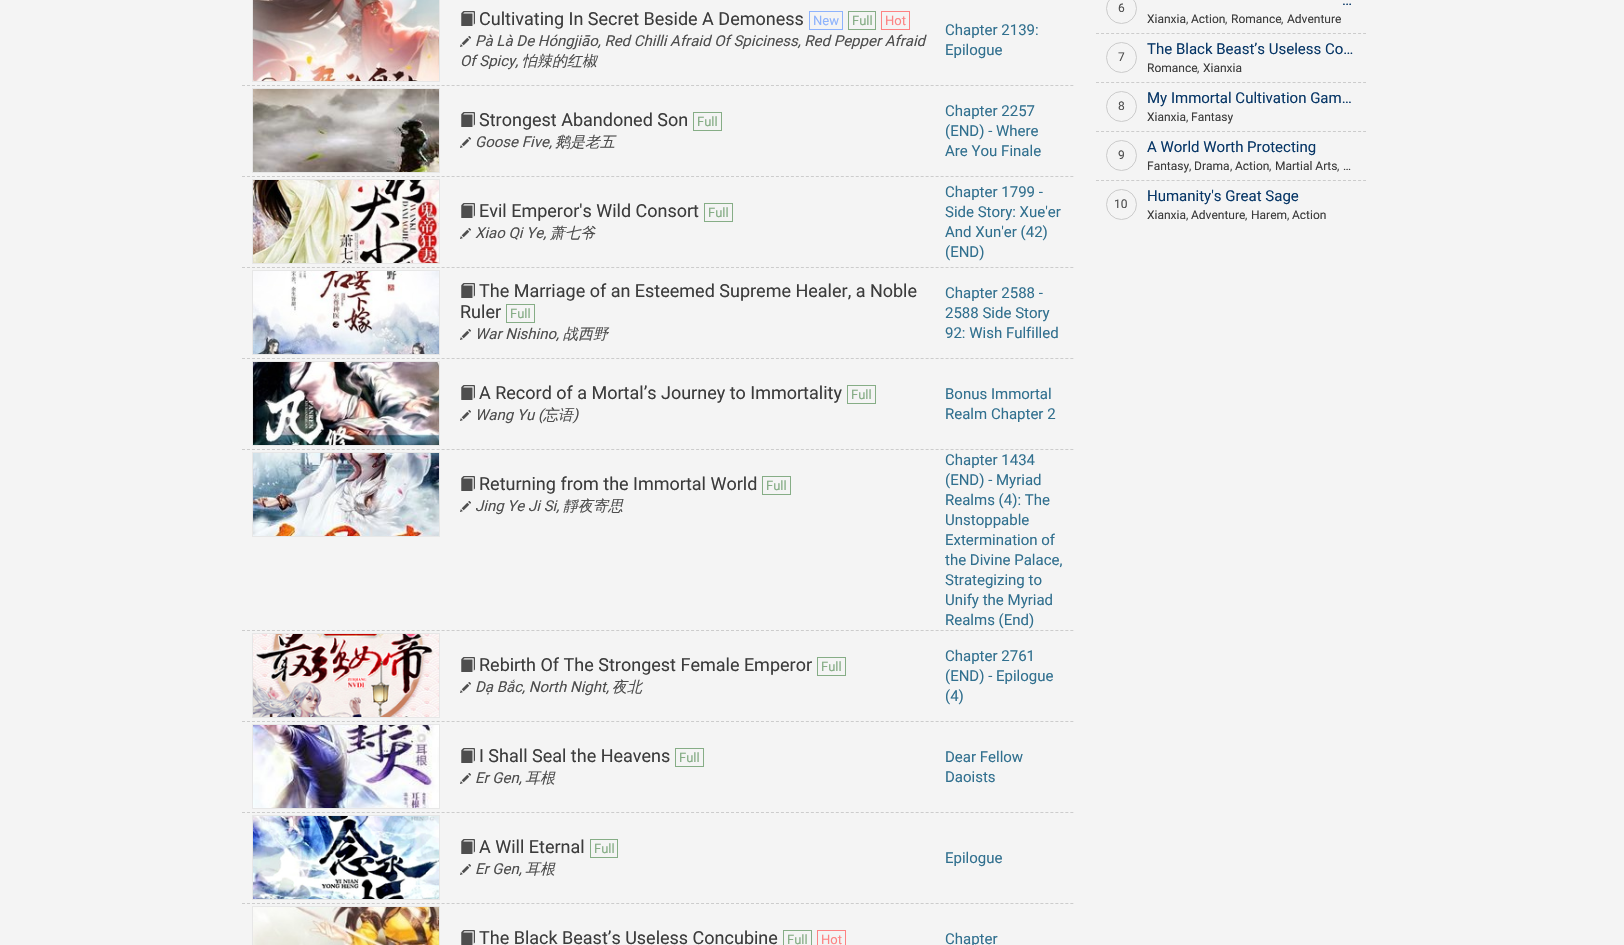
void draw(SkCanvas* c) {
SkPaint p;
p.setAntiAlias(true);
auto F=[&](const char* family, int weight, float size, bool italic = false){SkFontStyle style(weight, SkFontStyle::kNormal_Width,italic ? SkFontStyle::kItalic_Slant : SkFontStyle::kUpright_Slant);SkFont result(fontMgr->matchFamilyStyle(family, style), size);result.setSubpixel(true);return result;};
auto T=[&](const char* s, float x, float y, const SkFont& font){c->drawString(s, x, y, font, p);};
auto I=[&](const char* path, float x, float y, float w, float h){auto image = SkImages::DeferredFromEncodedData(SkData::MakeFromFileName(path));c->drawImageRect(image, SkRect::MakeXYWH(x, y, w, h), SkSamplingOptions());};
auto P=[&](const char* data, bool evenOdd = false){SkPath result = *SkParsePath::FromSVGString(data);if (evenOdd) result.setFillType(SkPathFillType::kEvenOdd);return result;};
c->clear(0xfff4f4f4);
p.setStroke(true);
p.setStrokeWidth(1);
p.setColor(0xffcccccc);
p.setPathEffect(SkDashPathEffect::Make({{3,1.99f}}, 0));
c->drawPath(P("M242 85.5h832"),p);
p.setPathEffect(nullptr);
p.setColor(0xffe7e7e7);
c->drawRect(SkRect::MakeXYWH(252.5,-.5,187,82),p);
I("1.png",253,0,186,81);
I("2.png",461,11,14,15);
auto f1 = F("Roboto",400,18);
p.setStroke(false);
p.setColor(0xff3c3c3c);
T("Cultivating In Secret Beside A Demoness",479,25,f1);
p.setStroke(true);
p.setColor(0xff8eb3fd);
c->drawRect(SkRect::MakeXYWH(809.5,11.5,33,18),p);
auto f2 = F("Roboto",400,13);
p.setStroke(false);
T("New",813,25,f2);
p.setStroke(true);
p.setColor(0xff86ad86);
c->drawRect(SkRect::MakeXYWH(848.5,11.5,27,18),p);
p.setStroke(false);
T("Full",852,25,f2);
p.setStroke(true);
p.setColor(0xfffd8383);
c->drawRect(SkRect::MakeXYWH(881.5,11.5,28,18),p);
p.setStroke(false);
T("Hot",885,25,f2);
I("3.png",460,36,11,11);
auto f3 = F("Roboto",400,15,true);
p.setColor(0xff4e4e4e);
T("Pà Là De Hóngjiāo, Red Chilli Afraid Of Spiciness, Red Pepper Afraid",475,46,f3);
T("Of Spicy,",460,66,f3);
auto f4 = F("WenQuanYi Zen Hei",500,15,true);
T("怕辣的红椒",522,66,f4);
auto f5 = F("Roboto",400,15);
p.setColor(0xff31708f);
T("Chapter 2139:",945,35,f5);
T("Epilogue",945,55,f5);
p.setStroke(true);
p.setColor(0xffcccccc);
p.setPathEffect(SkDashPathEffect::Make({{3,1.99f}}, 0));
c->drawPath(P("M242 176.5h832"),p);
p.setPathEffect(nullptr);
p.setColor(0xffe7e7e7);
c->drawRect(SkRect::MakeXYWH(252.5,88.5,187,84),p);
I("4.png",253,89,186,83);
I("2.png",461,112,14,15);
p.setStroke(false);
p.setColor(0xff3c3c3c);
T("Strongest Abandoned Son",479,126,f1);
p.setStroke(true);
p.setColor(0xff86ad86);
c->drawRect(SkRect::MakeXYWH(693.5,112.5,28,18),p);
p.setStroke(false);
T("Full",697,126,f2);
I("3.png",460,137,11,11);
p.setColor(0xff4e4e4e);
T("Goose Five,",475,147,f3);
T("鹅是老五",555,147,f4);
p.setColor(0xff31708f);
T("Chapter 2257",945,116,f5);
T("(END) - Where",945,136,f5);
T("Are You Finale",945,156,f5);
p.setStroke(true);
p.setColor(0xffcccccc);
p.setPathEffect(SkDashPathEffect::Make({{3,1.99f}}, 0));
c->drawPath(P("M242 267.5h832"),p);
p.setPathEffect(nullptr);
p.setColor(0xffe7e7e7);
c->drawRect(SkRect::MakeXYWH(252.5,179.5,187,84),p);
I("5.png",253,180,186,83);
I("2.png",461,203,14,15);
p.setStroke(false);
p.setColor(0xff3c3c3c);
T("Evil Emperor's Wild Consort",479,217,f1);
p.setStroke(true);
p.setColor(0xff86ad86);
c->drawRect(SkRect::MakeXYWH(704.5,203.5,28,18),p);
p.setStroke(false);
T("Full",708,217,f2);
I("3.png",460,228,11,11);
p.setColor(0xff4e4e4e);
T("Xiao Qi Ye,",475,238,f3);
T("萧七爷",550,238,f4);
p.setColor(0xff31708f);
T("Chapter 1799 -",945,197,f5);
T("Side Story: Xue'er",945,217,f5);
T("And Xun'er (42)",945,237,f5);
T("(END)",945,257,f5);
p.setStroke(true);
p.setColor(0xffcccccc);
p.setPathEffect(SkDashPathEffect::Make({{3,1.99f}}, 0));
c->drawPath(P("M242 358.5h832"),p);
p.setPathEffect(nullptr);
p.setColor(0xffe7e7e7);
c->drawRect(SkRect::MakeXYWH(252.5,270.5,187,84),p);
I("6.png",253,271,186,83);
I("2.png",461,283,14,15);
p.setStroke(false);
p.setColor(0xff3c3c3c);
T("The Marriage of an Esteemed Supreme Healer, a Noble",479,297,f1);
T("Ruler",460,318,f1);
p.setStroke(true);
p.setColor(0xff86ad86);
c->drawRect(SkRect::MakeXYWH(506.5,304.5,28,18),p);
p.setStroke(false);
T("Full",510,318,f2);
I("3.png",460,329,11,11);
p.setColor(0xff4e4e4e);
T("War Nishino,",475,339,f3);
T("战西野",563,339,f4);
p.setColor(0xff31708f);
T("Chapter 2588 -",945,298,f5);
T("2588 Side Story",945,318,f5);
T("92: Wish Fulfilled",945,338,f5);
p.setStroke(true);
p.setColor(0xffcccccc);
p.setPathEffect(SkDashPathEffect::Make({{3,1.99f}}, 0));
c->drawPath(P("M242 449.5h832"),p);
p.setPathEffect(nullptr);
p.setColor(0xffe7e7e7);
c->drawRect(SkRect::MakeXYWH(252.5,361.5,187,84),p);
I("7.png",253,362,186,83);
I("2.png",461,385,14,15);
p.setStroke(false);
p.setColor(0xff3c3c3c);
T("A Record of a Mortal’s Journey to Immortality",479,399,f1);
p.setStroke(true);
p.setColor(0xff86ad86);
c->drawRect(SkRect::MakeXYWH(847.5,385.5,28,18),p);
p.setStroke(false);
T("Full",851,399,f2);
I("3.png",460,410,11,11);
p.setColor(0xff4e4e4e);
T("Wang Yu (",475,420,f3);
T("忘语",543,420,f4);
T(")",573,420,f3);
p.setColor(0xff31708f);
T("Bonus Immortal",945,399,f5);
T("Realm Chapter 2",945,419,f5);
p.setStroke(true);
p.setColor(0xffcccccc);
p.setPathEffect(SkDashPathEffect::Make({{3,1.99f}}, 0));
c->drawPath(P("M242 630.5h832"),p);
p.setPathEffect(nullptr);
p.setColor(0xffe7e7e7);
c->drawRect(SkRect::MakeXYWH(252.5,452.5,187,84),p);
I("8.png",253,453,186,83);
I("2.png",461,476,14,15);
p.setStroke(false);
p.setColor(0xff3c3c3c);
T("Returning from the Immortal World",479,490,f1);
p.setStroke(true);
p.setColor(0xff86ad86);
c->drawRect(SkRect::MakeXYWH(762.5,476.5,28,18),p);
p.setStroke(false);
T("Full",766,490,f2);
I("3.png",460,501,11,11);
p.setColor(0xff4e4e4e);
T("Jing Ye Ji Si,",475,511,f3);
T("靜夜寄思",563,511,f4);
p.setColor(0xff31708f);
T("Chapter 1434",945,465,f5);
T("(END) - Myriad",945,485,f5);
T("Realms (4): The",945,505,f5);
T("Unstoppable",945,525,f5);
T("Extermination of",945,545,f5);
T("the Divine Palace,",945,565,f5);
T("Strategizing to",945,585,f5);
T("Unify the Myriad",945,605,f5);
T("Realms (End)",945,625,f5);
p.setStroke(true);
p.setColor(0xffcccccc);
p.setPathEffect(SkDashPathEffect::Make({{3,1.99f}}, 0));
c->drawPath(P("M242 721.5h832"),p);
p.setPathEffect(nullptr);
p.setColor(0xffe7e7e7);
c->drawRect(SkRect::MakeXYWH(252.5,633.5,187,84),p);
I("9.png",253,634,186,83);
I("2.png",461,657,14,15);
p.setStroke(false);
p.setColor(0xff3c3c3c);
T("Rebirth Of The Strongest Female Emperor",479,671,f1);
p.setStroke(true);
p.setColor(0xff86ad86);
c->drawRect(SkRect::MakeXYWH(817.5,657.5,28,18),p);
p.setStroke(false);
T("Full",821,671,f2);
I("3.png",460,682,11,11);
p.setColor(0xff4e4e4e);
T("Dạ Bắc, North Night,",475,692,f3);
T("夜北",612,692,f4);
p.setColor(0xff31708f);
T("Chapter 2761",945,661,f5);
T("(END) - Epilogue",945,681,f5);
T("(4)",945,701,f5);
p.setStroke(true);
p.setColor(0xffcccccc);
p.setPathEffect(SkDashPathEffect::Make({{3,1.99f}}, 0));
c->drawPath(P("M242 812.5h832"),p);
p.setPathEffect(nullptr);
p.setColor(0xffe7e7e7);
c->drawRect(SkRect::MakeXYWH(252.5,724.5,187,84),p);
I("10.png",253,725,186,83);
I("2.png",461,748,14,15);
p.setStroke(false);
p.setColor(0xff3c3c3c);
T("I Shall Seal the Heavens",479,762,f1);
p.setStroke(true);
p.setColor(0xff86ad86);
c->drawRect(SkRect::MakeXYWH(675.5,748.5,28,18),p);
p.setStroke(false);
T("Full",679,762,f2);
I("3.png",460,773,11,11);
p.setColor(0xff4e4e4e);
T("Er Gen,",475,783,f3);
T("耳根",525,783,f4);
p.setColor(0xff31708f);
T("Dear Fellow",945,762,f5);
T("Daoists",945,782,f5);
p.setStroke(true);
p.setColor(0xffcccccc);
p.setPathEffect(SkDashPathEffect::Make({{3,1.99f}}, 0));
c->drawPath(P("M242 903.5h832"),p);
p.setPathEffect(nullptr);
p.setColor(0xffe7e7e7);
c->drawRect(SkRect::MakeXYWH(252.5,815.5,187,84),p);
I("11.png",253,816,186,83);
I("2.png",461,839,14,15);
p.setStroke(false);
p.setColor(0xff3c3c3c);
T("A Will Eternal",479,853,f1);
p.setStroke(true);
p.setColor(0xff86ad86);
c->drawRect(SkRect::MakeXYWH(590.5,839.5,27,18),p);
p.setStroke(false);
T("Full",594,853,f2);
I("3.png",460,864,11,11);
p.setColor(0xff4e4e4e);
T("Er Gen,",475,874,f3);
T("耳根",525,874,f4);
p.setColor(0xff31708f);
T("Epilogue",945,863,f5);
p.setStroke(true);
p.setColor(0xffe7e7e7);
c->drawRect(SkRect::MakeXYWH(252.5,906.5,187,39),p);
I("12.png",253,907,186,38);
I("2.png",461,930,14,15);
p.setStroke(false);
p.setColor(0xff3c3c3c);
T("The Black Beast’s Useless Concubine",479,944,f1);
p.setStroke(true);
p.setColor(0xff86ad86);
c->drawRect(SkRect::MakeXYWH(783.5,930.5,28,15),p);
p.setStroke(false);
T("Full",787,944,f2);
p.setStroke(true);
p.setColor(0xfffd8383);
c->drawRect(SkRect::MakeXYWH(817.5,930.5,28,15),p);
p.setStroke(false);
T("Hot",821,944,f2);
p.setColor(0xff31708f);
T("Chapter",945,944,f5);
p.setStroke(true);
p.setColor(0xffcccccc);
p.setPathEffect(SkDashPathEffect::Make({{3,2.04f}}, 0));
c->drawPath(P("M1096 33.5h270"),p);
p.setPathEffect(nullptr);
p.setColor(0xffcbcbcb);
c->drawCircle(1121.5,8.5,15,p);
auto f6 = F("Roboto",400,12);
p.setStroke(false);
p.setColor(0xff4e4e4e);
T("6",1118,12,f6);
p.setColor(0xff083767);
T("…",1342,5,f5);
p.setColor(0xff3c3c3c);
T("Xianxia",1147,23,f6);
p.setColor(0xff4e4e4e);
T(",",1186,23,f6);
p.setColor(0xff3c3c3c);
T("Action",1191,23,f6);
p.setColor(0xff4e4e4e);
T(",",1225,23,f6);
p.setColor(0xff3c3c3c);
T("Romance",1231,23,f6);
p.setColor(0xff4e4e4e);
T(",",1281,23,f6);
p.setColor(0xff3c3c3c);
T("Adventure",1287,23,f6);
p.setStroke(true);
p.setColor(0xffcccccc);
p.setPathEffect(SkDashPathEffect::Make({{3,2.04f}}, 0));
c->drawPath(P("M1096 82.5h270"),p);
p.setPathEffect(nullptr);
p.setStroke(false);
p.setColor(0xff083767);
T("The Black Beast’s Useless Co…",1147,54,f5);
p.setStroke(true);
p.setColor(0xffcbcbcb);
c->drawCircle(1121.5,57.5,15,p);
p.setStroke(false);
p.setColor(0xff4e4e4e);
T("7",1118,61,f6);
p.setColor(0xff3c3c3c);
T("Romance",1147,72,f6);
p.setColor(0xff4e4e4e);
T(",",1197,72,f6);
p.setColor(0xff3c3c3c);
T("Xianxia",1203,72,f6);
p.setStroke(true);
p.setColor(0xffcccccc);
p.setPathEffect(SkDashPathEffect::Make({{3,2.04f}}, 0));
c->drawPath(P("M1096 131.5h270"),p);
p.setPathEffect(nullptr);
p.setColor(0xffcbcbcb);
c->drawCircle(1121.5,106.5,15,p);
p.setStroke(false);
p.setColor(0xff4e4e4e);
T("8",1118,110,f6);
p.setColor(0xff083767);
T("My Immortal Cultivation Gam…",1147,103,f5);
p.setColor(0xff3c3c3c);
T("Xianxia",1147,121,f6);
p.setColor(0xff4e4e4e);
T(",",1186,121,f6);
p.setColor(0xff3c3c3c);
T("Fantasy",1191,121,f6);
p.setStroke(true);
p.setColor(0xffcccccc);
p.setPathEffect(SkDashPathEffect::Make({{3,2.04f}}, 0));
c->drawPath(P("M1096 180.5h270"),p);
p.setPathEffect(nullptr);
p.setColor(0xffcbcbcb);
c->drawCircle(1121.5,155.5,15,p);
p.setStroke(false);
p.setColor(0xff4e4e4e);
T("9",1118,159,f6);
p.setColor(0xff083767);
T("A World Worth Protecting",1147,152,f5);
p.setColor(0xff3c3c3c);
T("Fantasy",1147,170,f6);
p.setColor(0xff4e4e4e);
T(",",1189,170,f6);
p.setColor(0xff3c3c3c);
T("Drama",1194,170,f6);
p.setColor(0xff4e4e4e);
T(",",1230,170,f6);
p.setColor(0xff3c3c3c);
T("Action",1235,170,f6);
p.setColor(0xff4e4e4e);
T(",",1269,170,f6);
p.setColor(0xff3c3c3c);
T("Martial Arts",1275,170,f6);
p.setColor(0xff4e4e4e);
T(",",1337,170,f6);
p.setColor(0xff3c3c3c);
T("…",1343,170,f6);
p.setStroke(true);
p.setColor(0xffcbcbcb);
c->drawCircle(1121.5,204.5,15,p);
p.setStroke(false);
p.setColor(0xff4e4e4e);
T("10",1114,208,f6);
p.setColor(0xff083767);
T("Humanity's Great Sage",1147,201,f5);
p.setColor(0xff3c3c3c);
T("Xianxia",1147,219,f6);
p.setColor(0xff4e4e4e);
T(",",1186,219,f6);
p.setColor(0xff3c3c3c);
T("Adventure",1191,219,f6);
p.setColor(0xff4e4e4e);
T(",",1245,219,f6);
p.setColor(0xff3c3c3c);
T("Harem",1251,219,f6);
p.setColor(0xff4e4e4e);
T(",",1287,219,f6);
p.setColor(0xff3c3c3c);
T("Action",1292,219,f6);
}
